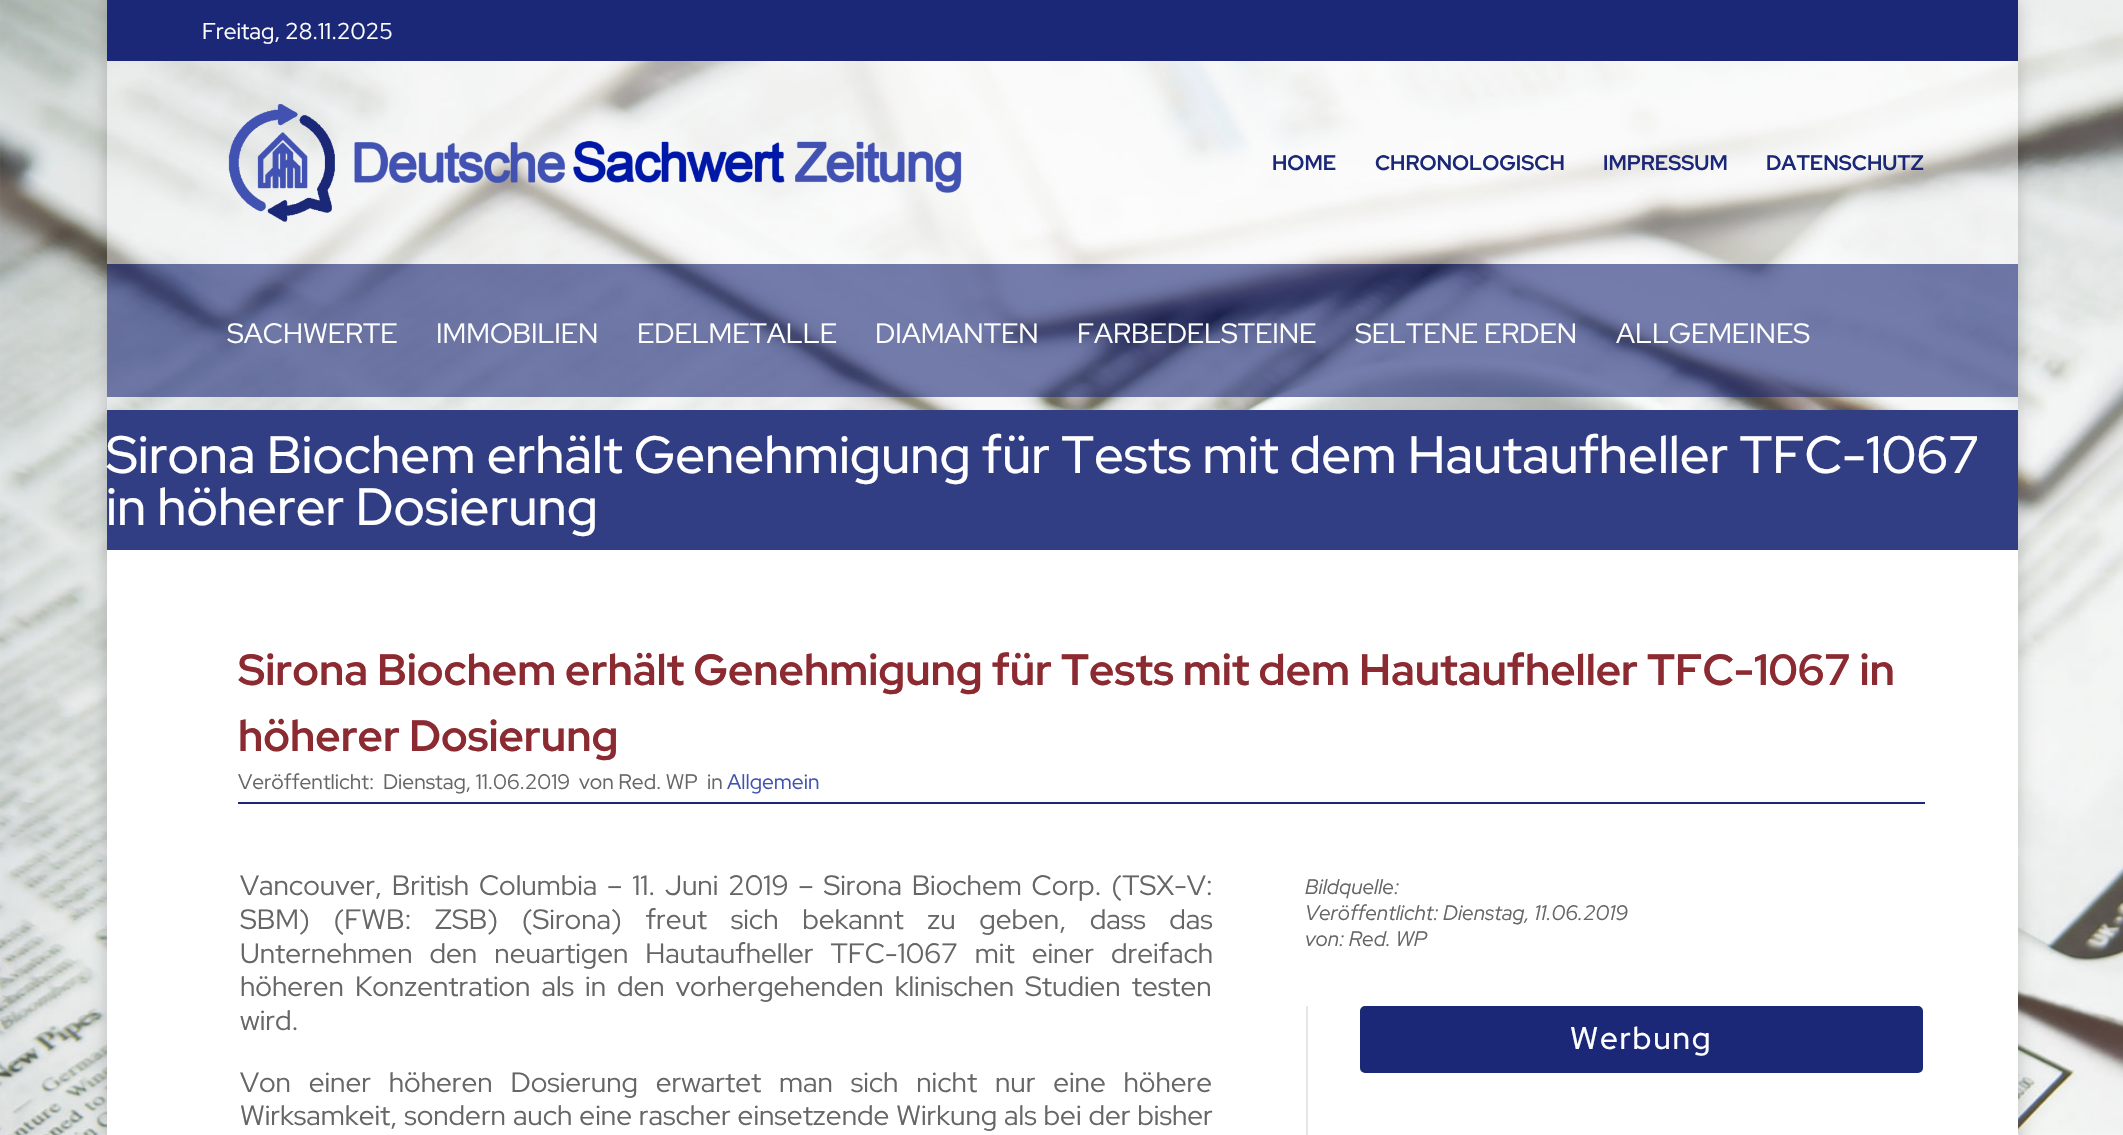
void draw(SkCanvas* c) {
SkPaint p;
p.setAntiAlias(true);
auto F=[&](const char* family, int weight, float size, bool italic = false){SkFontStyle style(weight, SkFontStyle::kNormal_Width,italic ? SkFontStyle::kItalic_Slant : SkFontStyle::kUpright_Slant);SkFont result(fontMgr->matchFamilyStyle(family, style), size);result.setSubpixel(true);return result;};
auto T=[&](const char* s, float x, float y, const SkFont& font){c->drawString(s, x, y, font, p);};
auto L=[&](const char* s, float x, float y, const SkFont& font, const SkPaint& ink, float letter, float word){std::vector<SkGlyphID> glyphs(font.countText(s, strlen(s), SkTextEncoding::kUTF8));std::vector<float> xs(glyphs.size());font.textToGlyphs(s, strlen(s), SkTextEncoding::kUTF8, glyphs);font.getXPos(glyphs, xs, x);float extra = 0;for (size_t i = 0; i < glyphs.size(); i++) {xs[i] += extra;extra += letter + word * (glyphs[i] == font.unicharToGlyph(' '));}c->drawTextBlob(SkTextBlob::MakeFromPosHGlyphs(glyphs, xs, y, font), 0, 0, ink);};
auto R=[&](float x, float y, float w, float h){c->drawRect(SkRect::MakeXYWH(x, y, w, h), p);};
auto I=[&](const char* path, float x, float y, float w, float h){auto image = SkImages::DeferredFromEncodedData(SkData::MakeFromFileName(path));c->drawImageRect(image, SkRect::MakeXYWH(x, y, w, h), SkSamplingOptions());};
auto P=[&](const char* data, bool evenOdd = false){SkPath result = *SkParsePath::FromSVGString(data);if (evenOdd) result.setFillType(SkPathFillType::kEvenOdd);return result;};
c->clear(0xffffffff);
I("1.png",0,0,2123,1135);
c->save();
c->clipPath(P("M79 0h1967v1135h-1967zm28 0h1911v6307h-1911z",true),true);
p.setColor(0x33000000);
p.setMaskFilter(SkMaskFilter::MakeBlur(kNormal_SkBlurStyle, 9));
c->drawRect(SkRect::MakeXYWH(107,0,1911,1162),p);
p.setMaskFilter(nullptr);
c->restore();
p.setColor(0xff1b2877);
R(107,0,1911,61);
auto f1 = F("Red Hat Display",400,22.75);
p.setColor(0xffffffff);
T("Freitag, 28.11.2025",202,39,f1);
p.setColor(0x6effffff);
R(107,61,1911,203);
I("2.png",228,104,734,118);
auto f2 = F("Red Hat Display",700,21);
p.setColor(0xff1b2877);
T("HOME",1272,170,f2);
T("CHRONOLOGISCH",1375,170,f2);
T("IMPRESSUM",1603,170,f2);
T("DATENSCHUTZ",1766,170,f2);
p.setColor(0x991b2877);
R(107,264,1911,133);
auto f3 = F("Red Hat Display",400,28);
p.setColor(0xffffffff);
T("SACHWERTE",227,343,f3);
T("IMMOBILIEN",436,343,f3);
T("EDELMETALLE",637,343,f3);
T("DIAMANTEN",875,343,f3);
T("FARBEDELSTEINE",1077,343,f3);
T("SELTENE ERDEN",1355,343,f3);
T("ALLGEMEINES",1616,343,f3);
R(107,550,1911,585);
p.setColor(0xff323e84);
R(107,410,1911,140);
auto f4 = F("Red Hat Display",500,52.5);
p.setColor(0xffffffff);
T("Sirona Biochem erhält Genehmigung für Tests mit dem Hautaufheller TFC-1067",106,473,f4);
T("in höherer Dosierung",106,525,f4);
auto f5 = F("Red Hat Display",700,43.75);
p.setColor(0xff8c2a31);
T("Sirona Biochem erhält Genehmigung für Tests mit dem Hautaufheller TFC-1067 in",238,685,f5);
T("höherer Dosierung",238,751,f5);
auto f6 = F("Red Hat Display",400,21);
p.setColor(0xff666666);
T("Veröffentlicht:",238,789,f6);
T("Dienstag, 11.06.2019",383,789,f6);
T("von Red. WP",579,789,f6);
T("in",707,789,f6);
p.setColor(0xff4152b3);
T("Allgemein",727,789,f6);
p.setColor(0xff1b2877);
R(238,802,1687,2);
p.setColor(0xff666666);
L("Vancouver, British Columbia – 11. Juni 2019 – Sirona Biochem Corp. (TSX-V:",240,895,f3,p,0,3.75);
L("SBM) (FWB: ZSB) (Sirona) freut sich bekannt zu geben, dass das",240,929,f3,p,0,17.6);
L("Unternehmen den neuartigen Hautaufheller TFC-1067 mit einer dreifach",240,963,f3,p,0,11);
L("höheren Konzentration als in den vorhergehenden klinischen Studien testen",240,996,f3,p,0,5);
T("wird.",240,1030,f3);
L("Von einer höheren Dosierung erwartet man sich nicht nur eine höhere",240,1092,f3,p,0,11.75);
L("Wirksamkeit, sondern auch eine rascher einsetzende Wirkung als bei der bisher",240,1125,f3,p,0,.9);
auto f7 = F("Red Hat Display",400,21,true);
T("Bildquelle:",1305,894,f7);
T("Veröffentlicht: Dienstag, 11.06.2019",1305,920,f7);
T("von: Red. WP",1305,946,f7);
p.setColor(0xffe6e6e6);
R(1306,1006,2,129);
p.setColor(0xff1b2877);
c->drawRoundRect(SkRect::MakeXYWH(1361,1007,561,65),4,4,p);
p.setStroke(true);
p.setStrokeWidth(2);
c->drawRoundRect(SkRect::MakeXYWH(1361,1007,561,65),4,4,p);
auto f8 = F("Red Hat Display",500,31.5);
p.setStroke(false);
p.setColor(0xffffffff);
L("Werbung",1570,1049,f8,p,1.75,0);
}
